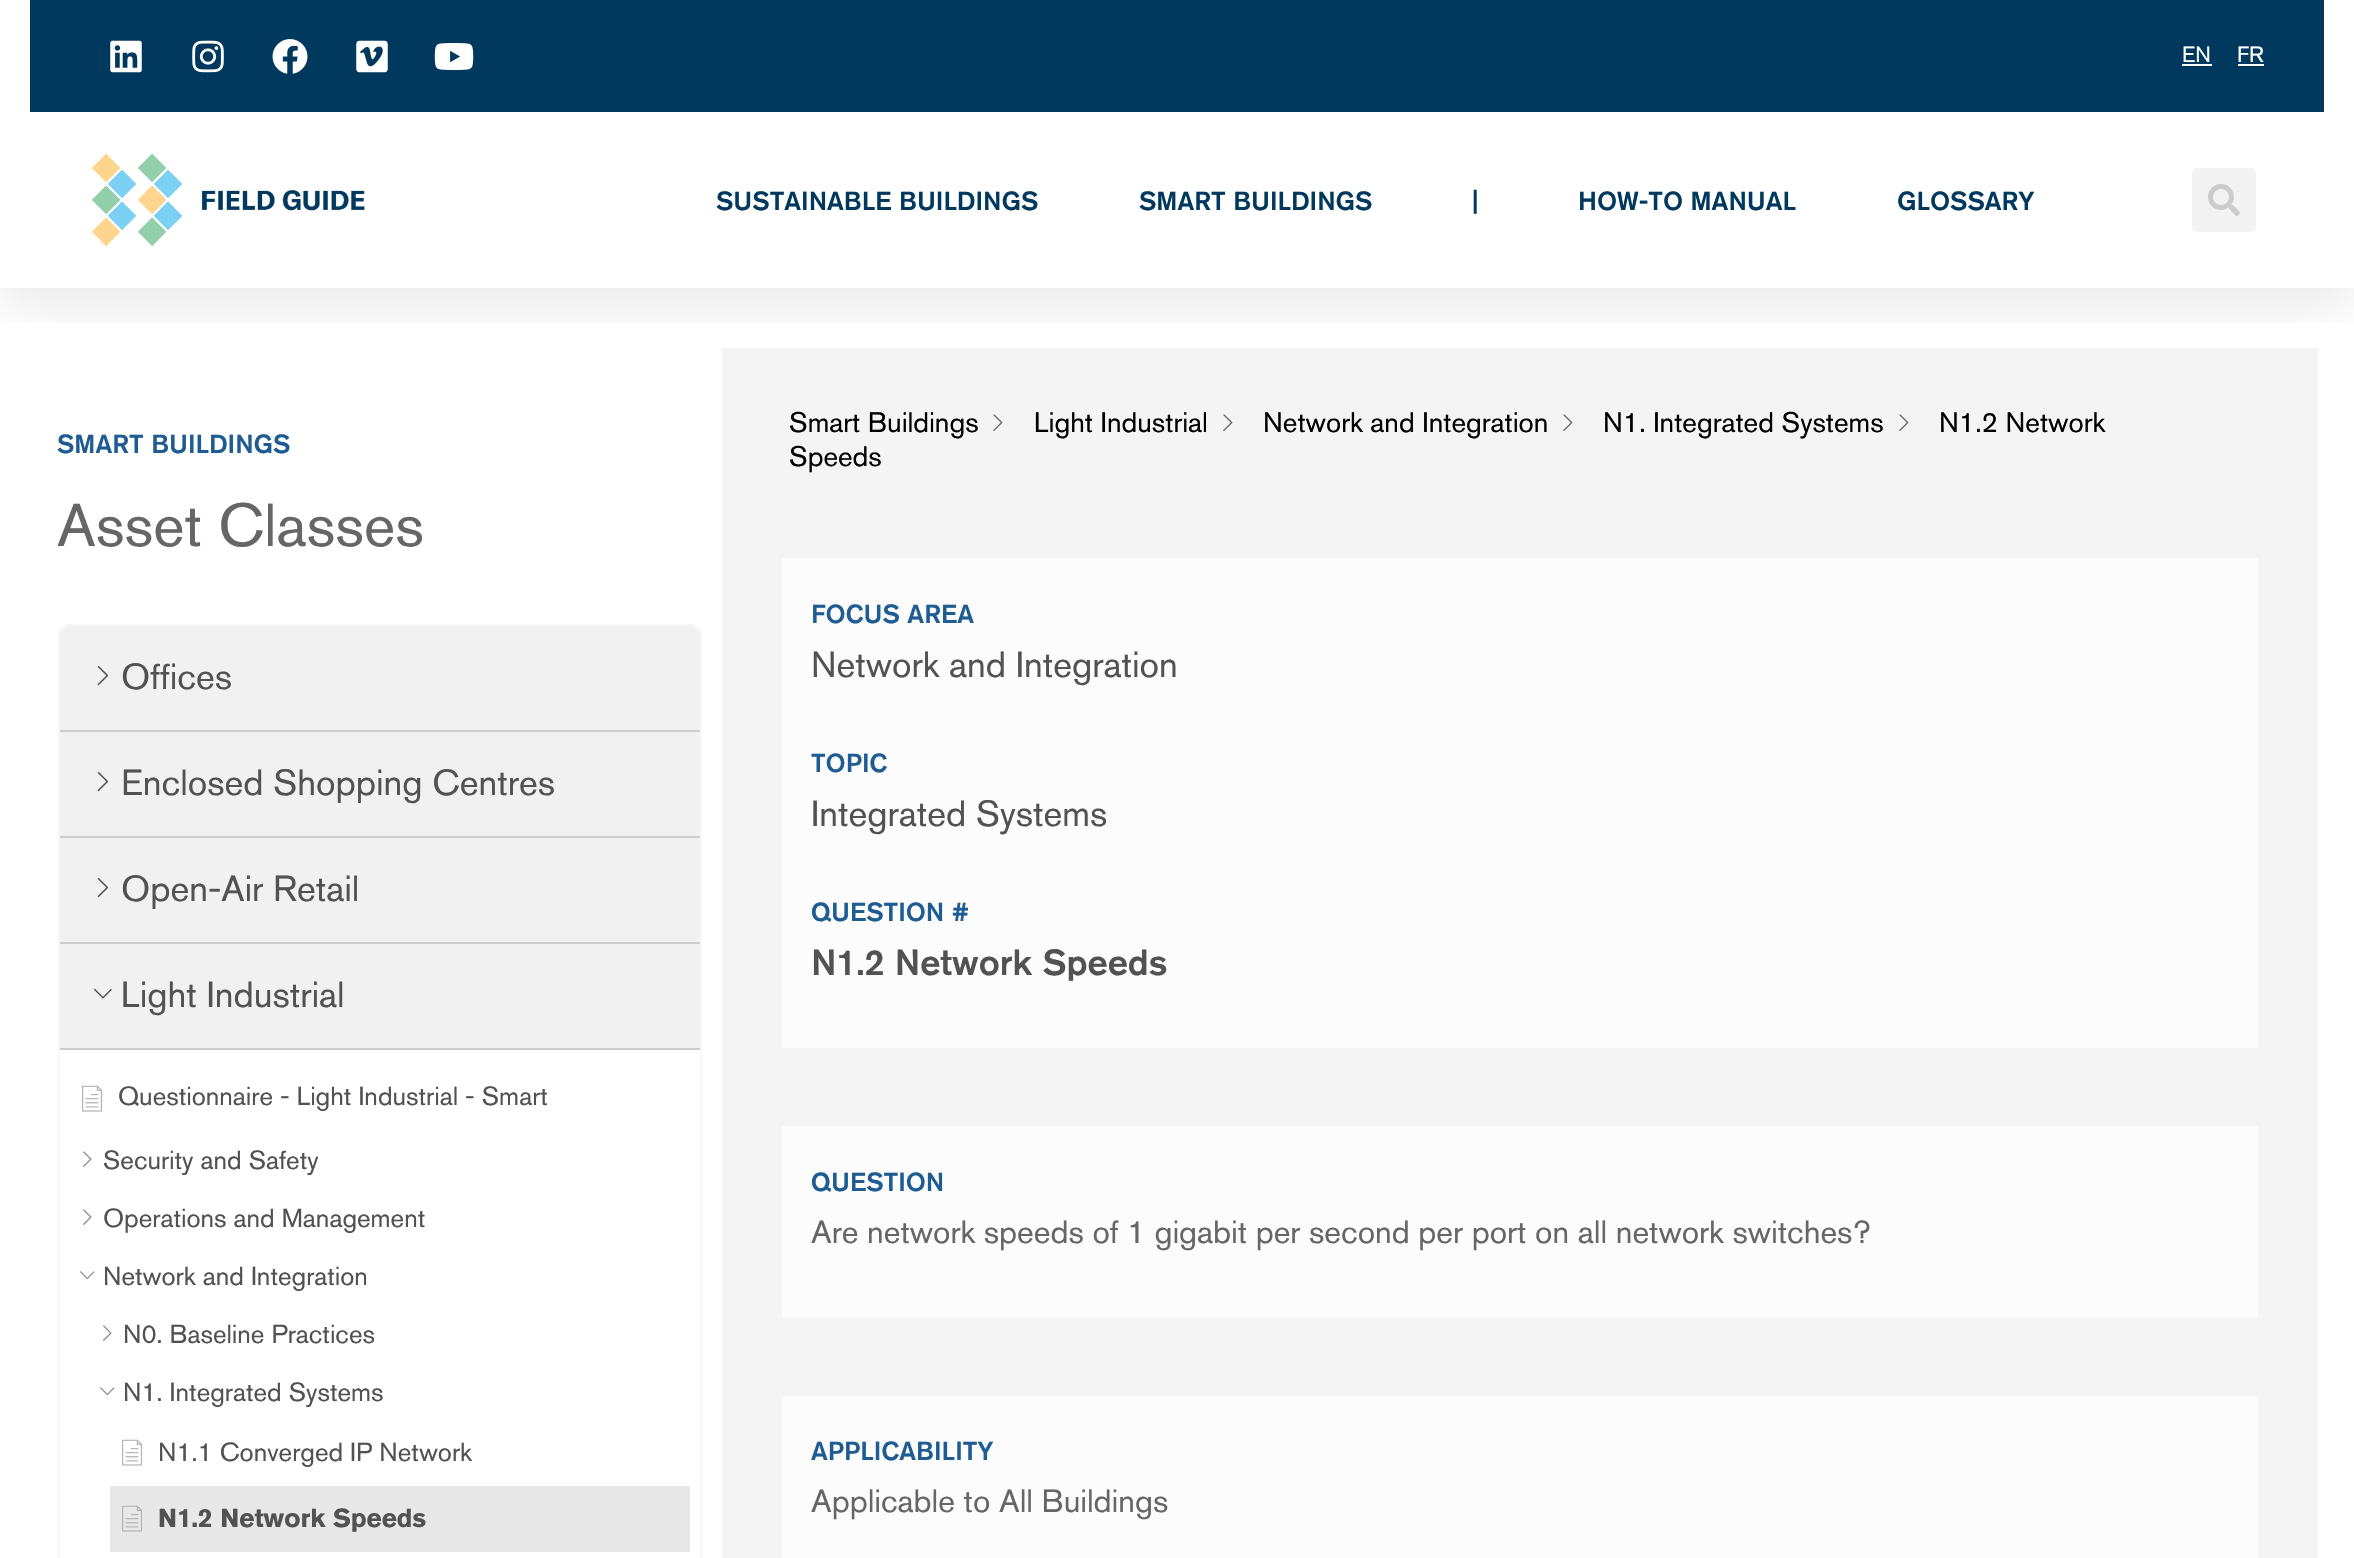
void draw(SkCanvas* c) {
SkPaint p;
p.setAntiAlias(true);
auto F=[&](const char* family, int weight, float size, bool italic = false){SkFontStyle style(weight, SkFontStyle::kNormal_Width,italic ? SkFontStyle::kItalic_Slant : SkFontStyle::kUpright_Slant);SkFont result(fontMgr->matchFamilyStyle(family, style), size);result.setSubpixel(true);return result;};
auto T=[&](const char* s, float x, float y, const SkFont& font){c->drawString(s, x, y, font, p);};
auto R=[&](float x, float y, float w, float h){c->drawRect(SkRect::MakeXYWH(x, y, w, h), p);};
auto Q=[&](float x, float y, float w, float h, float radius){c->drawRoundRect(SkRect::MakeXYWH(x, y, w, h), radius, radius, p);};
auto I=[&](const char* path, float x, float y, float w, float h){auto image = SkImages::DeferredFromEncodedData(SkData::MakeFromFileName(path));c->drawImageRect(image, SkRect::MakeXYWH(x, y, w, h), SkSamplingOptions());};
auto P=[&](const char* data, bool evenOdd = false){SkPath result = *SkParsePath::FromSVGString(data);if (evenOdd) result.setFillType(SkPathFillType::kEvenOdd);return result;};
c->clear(0xffffffff);
p.setColor(0xfff4f4f4);
R(722,348,1596,1210);
c->save();
c->clipRect(SkRect::MakeXYWH(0,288,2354,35));
p.setColor(0x1a000000);
p.setMaskFilter(SkMaskFilter::MakeBlur(kNormal_SkBlurStyle, 30));
c->drawRect(SkRect::MakeXYWH(0,10,2354,288),p);
p.setMaskFilter(nullptr);
c->restore();
p.setColor(0xff00395d);
R(30,0,2294,112);
I("1.png",110,40,32,33);
I("2.png",192,40,32,33);
I("3.png",272,39,36,35);
I("4.png",356,40,32,33);
I("5.png",434,43,40,27);
auto f1 = F("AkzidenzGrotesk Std",400,22);
p.setColor(0xffffffff);
T("EN",2182,62,f1);
R(2182,64,30,2);
T("FR",2237,62,f1);
R(2238,64,26,2);
I("6.png",91,153,274,94);
auto f2 = F("AkzidenzGrotesk Std",500,26);
p.setColor(0xff00395d);
T("SUSTAINABLE BUILDINGS",716,210,f2);
T("SMART BUILDINGS",1139,210,f2);
T("|",1472,210,f2);
T("HOW-TO MANUAL",1578,210,f2);
T("GLOSSARY",1897,210,f2);
p.setColor(0xfff2f2f2);
Q(2192,168,64,64,6);
I("7.png",2208,184,32,32);
p.setColor(0xff1f5c94);
T("SMART BUILDINGS",57,453,f2);
auto f3 = F("AkzidenzGrotesk Std",400,60);
p.setColor(0xff666666);
T("Asset Classes",57,546,f3);
p.setStroke(true);
p.setStrokeWidth(2);
p.setColor(0xfff7f7f7);
c->drawRoundRect(SkRect::MakeXYWH(59,625,642,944),9,9,p);
p.setStroke(false);
p.setColor(0xfff1f1f1);
c->drawPath(P("M70 626h620c5.5 0 10 4.5 10 10v96h-640v-96c0-5.5 4.5-10 10-10z"),p);
p.setColor(0xffcdcdcd);
R(60,730,640,2);
I("8.png",97,666,12,20);
auto f4 = F("AkzidenzGrotesk Std",400,36);
p.setColor(0xff525252);
T("Offices",121,689,f4);
p.setColor(0xfff1f1f1);
R(60,732,640,104);
p.setColor(0xffcdcdcd);
R(60,836,640,2);
I("8.png",97,772,12,20);
p.setColor(0xff525252);
T("Enclosed Shopping Centres",121,795,f4);
p.setColor(0xfff1f1f1);
R(60,838,640,104);
p.setColor(0xffcdcdcd);
R(60,942,640,2);
I("8.png",97,878,12,20);
p.setColor(0xff525252);
T("Open-Air Retail",121,901,f4);
p.setColor(0xfff1f1f1);
R(60,944,640,104);
p.setColor(0xffcdcdcd);
R(60,1048,640,2);
I("9.png",94,988,18,11);
p.setColor(0xff525252);
T("Light Industrial",121,1007,f4);
I("10.png",82,1085,21,27);
auto f5 = F("AkzidenzGrotesk Std",400,26);
T("Questionnaire - Light Industrial - Smart",118,1105,f5);
I("11.png",83,1151,9,16);
T("Security and Safety",103,1169,f5);
I("11.png",83,1209,9,16);
T("Operations and Management",103,1227,f5);
I("12.png",80,1271,15,9);
T("Network and Integration",103,1285,f5);
I("11.png",103,1325,9,16);
T("N0. Baseline Practices",123,1343,f5);
I("12.png",100,1387,15,9);
T("N1. Integrated Systems",123,1401,f5);
I("10.png",122,1439,21,27);
T("N1.1 Converged IP Network",158,1461,f5);
p.setColor(0xffe8e8e8);
R(110,1486,580,66);
I("13.png",122,1505,21,27);
auto f6 = F("AkzidenzGrotesk Std",700,26);
p.setColor(0xff525252);
T("N1.2 Network Speeds",158,1527,f6);
auto f7 = F("AkzidenzGrotesk Std",400,28);
p.setColor(0xff000000);
T("Smart Buildings",789,432,f7);
I("14.png",993,414,10,17);
T("Light Industrial",1034,432,f7);
I("14.png",1223,414,10,17);
T("Network and Integration",1263,432,f7);
I("14.png",1563,414,10,17);
T("N1. Integrated Systems",1603,432,f7);
I("14.png",1899,414,10,17);
T("N1.2 Network",1939,432,f7);
T("Speeds",789,466,f7);
p.setColor(0xfffcfcfc);
R(782,558,1476,490);
p.setColor(0xff1f5c94);
T("FOCUS AREA",811,623,f2);
p.setColor(0xff525252);
T("Network and Integration",811,677,f4);
p.setColor(0xff1f5c94);
T("TOPIC",811,772,f2);
p.setColor(0xff525252);
T("Integrated Systems",811,826,f4);
p.setColor(0xff1f5c94);
T("QUESTION #",811,921,f2);
auto f8 = F("AkzidenzGrotesk Std",500,36);
p.setColor(0xff525252);
T("N1.2 Network Speeds",811,975,f8);
p.setColor(0xfffcfcfc);
R(782,1126,1476,192);
p.setColor(0xff1f5c94);
T("QUESTION",811,1191,f2);
auto f9 = F("AkzidenzGrotesk Std",400,32);
p.setColor(0xff666666);
T("Are network speeds of 1 gigabit per second per port on all network switches?",811,1243,f9);
p.setColor(0xfffcfcfc);
R(782,1396,1476,162);
p.setColor(0xff1f5c94);
T("APPLICABILITY",811,1460,f2);
p.setColor(0xff666666);
T("Applicable to All Buildings",811,1512,f9);
}
